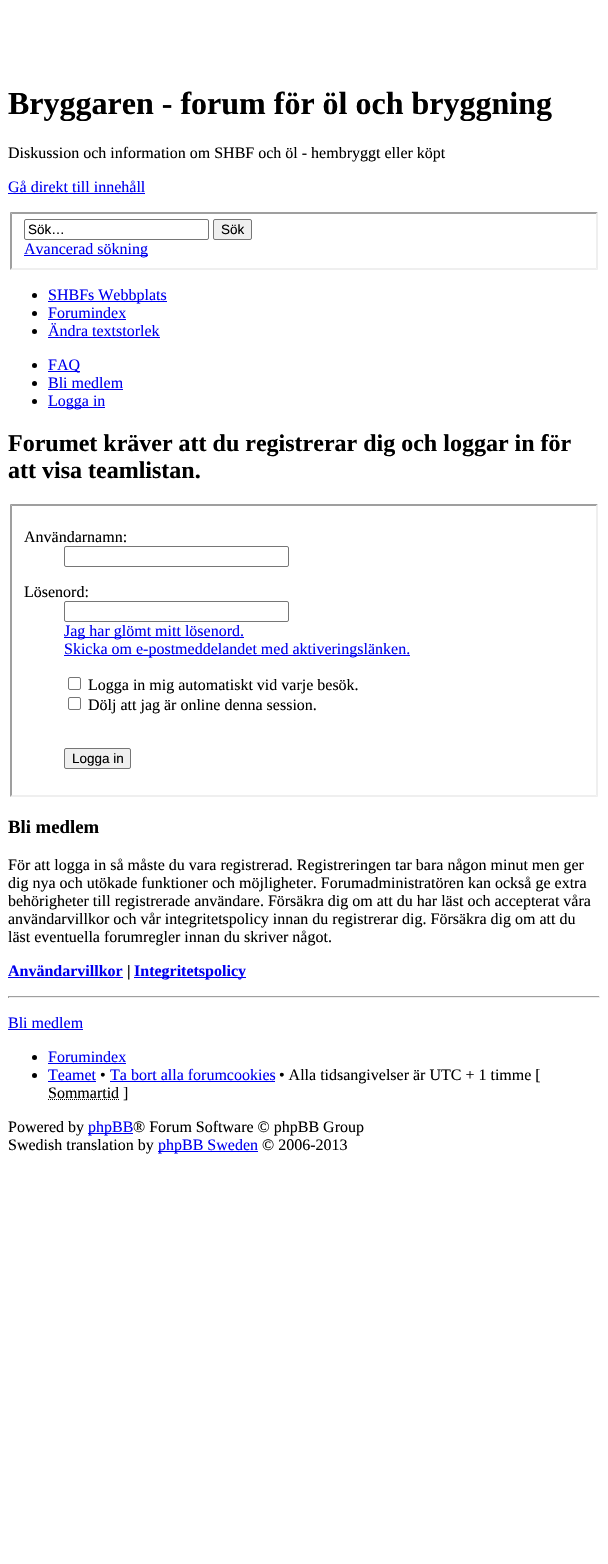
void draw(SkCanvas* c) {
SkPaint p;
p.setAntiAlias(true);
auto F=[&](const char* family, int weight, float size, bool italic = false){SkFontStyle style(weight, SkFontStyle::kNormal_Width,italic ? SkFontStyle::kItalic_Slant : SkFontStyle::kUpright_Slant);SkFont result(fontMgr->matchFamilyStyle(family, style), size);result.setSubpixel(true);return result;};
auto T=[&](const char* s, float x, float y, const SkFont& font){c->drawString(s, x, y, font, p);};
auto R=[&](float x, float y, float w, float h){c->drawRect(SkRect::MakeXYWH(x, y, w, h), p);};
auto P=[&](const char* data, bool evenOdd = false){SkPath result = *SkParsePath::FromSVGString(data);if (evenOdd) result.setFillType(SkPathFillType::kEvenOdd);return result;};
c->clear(0xffffffff);
auto f1 = F("Liberation Serif",700,32);
p.setColor(0xff000000);
T("Bryggaren - forum för öl och bryggning",8,114,f1);
auto f2 = F("Liberation Serif",400,16);
T("Diskussion och information om SHBF och öl - hembryggt eller köpt",8,158,f2);
p.setColor(0xff0000ee);
T("Gå direkt till innehåll",8,192,f2);
R(8,193,137,1);
p.setColor(0xff9f9f9f);
c->drawPath(P("M10 212h588l-2 2h-584z"),p);
p.setColor(0xffefefef);
c->drawPath(P("M598 212v58l-2-2v-54z"),p);
c->drawPath(P("M598 270h-588l2-2h584z"),p);
p.setColor(0xff9f9f9f);
c->drawPath(P("M10 270v-58l2 2v54z"),p);
p.setStroke(true);
p.setStrokeWidth(1);
p.setColor(0xff767676);
c->drawRoundRect(SkRect::MakeXYWH(24.5,219.5,184,20),1.5,1.5,p);
auto f3 = F("Liberation Sans",400,13.5);
p.setStroke(false);
p.setColor(0xff000000);
T("Sök…",28,234,f3);
p.setColor(0xffefefef);
c->drawRoundRect(SkRect::MakeXYWH(213.5,219.5,38,20),1.5,1.5,p);
p.setStroke(true);
p.setColor(0xff767676);
c->drawRoundRect(SkRect::MakeXYWH(213.5,219.5,38,20),1.5,1.5,p);
p.setStroke(false);
p.setColor(0xff000000);
T("Sök",221,234,f3);
p.setColor(0xff0000ee);
R(24,255,124,1);
T("Avancerad sökning",24,254,f2);
p.setColor(0xff000000);
c->drawCircle(34.5,295.5,2.5,p);
p.setColor(0xff0000ee);
R(48,301,119,1);
T("SHBFs Webbplats",48,300,f2);
p.setColor(0xff000000);
c->drawCircle(34.5,313.5,2.5,p);
p.setColor(0xff0000ee);
T("Forumindex",48,318,f2);
R(48,319,78,1);
p.setColor(0xff000000);
c->drawCircle(34.5,331.5,2.5,p);
p.setColor(0xff0000ee);
T("Ändra textstorlek",48,336,f2);
R(48,337,112,1);
p.setColor(0xff000000);
c->drawCircle(34.5,365.5,2.5,p);
p.setColor(0xff0000ee);
R(48,371,32,1);
T("FAQ",48,370,f2);
p.setColor(0xff000000);
c->drawCircle(34.5,383.5,2.5,p);
p.setColor(0xff0000ee);
T("Bli medlem",48,388,f2);
R(48,389,75,1);
p.setColor(0xff000000);
c->drawCircle(34.5,401.5,2.5,p);
p.setColor(0xff0000ee);
R(48,407,57,1);
T("Logga in",48,406,f2);
auto f4 = F("Liberation Serif",700,24);
p.setColor(0xff000000);
T("Forumet kräver att du registrerar dig och loggar in för",8,451,f4);
T("att visa teamlistan.",8,478,f4);
p.setColor(0xff9f9f9f);
c->drawPath(P("M10 504h588l-2 2h-584z"),p);
p.setColor(0xffefefef);
c->drawPath(P("M598 504v293l-2-2v-289z"),p);
c->drawPath(P("M598 797h-588l2-2h584z"),p);
p.setColor(0xff9f9f9f);
c->drawPath(P("M10 797v-293l2 2v289z"),p);
p.setColor(0xff000000);
T("Användarnamn:",24,542,f2);
p.setStroke(true);
p.setColor(0xff767676);
c->drawRoundRect(SkRect::MakeXYWH(64.5,546.5,224,20),1.5,1.5,p);
p.setStroke(false);
p.setColor(0xff000000);
T("Lösenord:",24,597,f2);
p.setStroke(true);
p.setColor(0xff767676);
c->drawRoundRect(SkRect::MakeXYWH(64.5,601.5,224,20),1.5,1.5,p);
p.setStroke(false);
p.setColor(0xff0000ee);
R(64,637,180,1);
T("Jag har glömt mitt lösenord.",64,636,f2);
R(64,655,346,1);
T("Skicka om e-postmeddelandet med aktiveringslänken.",64,654,f2);
p.setStroke(true);
p.setColor(0xff767676);
c->drawRoundRect(SkRect::MakeXYWH(68.5,677.5,12,12),1.5,1.5,p);
p.setStroke(false);
p.setColor(0xff000000);
T("Logga in mig automatiskt vid varje besök.",88,690,f2);
p.setStroke(true);
p.setColor(0xff767676);
c->drawRoundRect(SkRect::MakeXYWH(68.5,697.5,12,12),1.5,1.5,p);
p.setStroke(false);
p.setColor(0xff000000);
T("Dölj att jag är online denna session.",88,710,f2);
p.setColor(0xffefefef);
c->drawRoundRect(SkRect::MakeXYWH(64.5,748.5,66,20),1.5,1.5,p);
p.setStroke(true);
p.setColor(0xff767676);
c->drawRoundRect(SkRect::MakeXYWH(64.5,748.5,66,20),1.5,1.5,p);
p.setStroke(false);
p.setColor(0xff000000);
T("Logga in",72,763,f3);
auto f5 = F("Liberation Serif",700,18.75);
T("Bli medlem",8,833,f5);
T("För att logga in så måste du vara registrerad. Registreringen tar bara någon minut men ger",8,870,f2);
T("dig nya och utökade funktioner och möjligheter. Forumadministratören kan också ge extra",8,888,f2);
T("behörigheter till registrerade användare. Försäkra dig om att du har läst och accepterat våra",8,906,f2);
T("användarvillkor och vår integritetspolicy innan du registrerar dig. Försäkra dig om att du",8,924,f2);
T("läst eventuella forumregler innan du skriver något.",8,942,f2);
auto f6 = F("Liberation Serif",700,16);
p.setColor(0xff0000ee);
T("Användarvillkor",8,976,f6);
R(8,977,115,1);
p.setColor(0xff000000);
T("|",127,976,f6);
p.setColor(0xff0000ee);
R(134,977,112,1);
T("Integritetspolicy",134,976,f6);
p.setColor(0xff9f9f9f);
R(8,996,592,1);
p.setColor(0xffeeeeee);
R(599,996,1,2);
R(8,997,592,1);
p.setColor(0xff9f9f9f);
R(8,996,1,2);
p.setColor(0xff0000ee);
T("Bli medlem",8,1028,f2);
R(8,1029,75,1);
p.setColor(0xff000000);
c->drawCircle(34.5,1057.5,2.5,p);
p.setColor(0xff0000ee);
T("Forumindex",48,1062,f2);
R(48,1063,78,1);
p.setColor(0xff000000);
c->drawCircle(34.5,1075.5,2.5,p);
p.setColor(0xff0000ee);
T("Teamet",48,1080,f2);
R(48,1081,48,1);
p.setColor(0xff000000);
T("•",100,1080,f2);
p.setColor(0xff0000ee);
T("Ta bort alla forumcookies",110,1080,f2);
R(110,1081,165,1);
p.setColor(0xff000000);
T("• Alla tidsangivelser är UTC + 1 timme [",279,1080,f2);
p.setStroke(true);
p.setPathEffect(SkDashPathEffect::Make({{1,1}}, 0));
c->drawPath(P("M48 1099.5h71"),p);
p.setPathEffect(nullptr);
p.setStroke(false);
T("Sommartid ]",48,1098,f2);
T("Powered by",8,1132,f2);
p.setColor(0xff0000ee);
R(88,1133,45,1);
T("phpBB",88,1132,f2);
p.setColor(0xff000000);
T("® Forum Software © phpBB Group",133,1132,f2);
T("Swedish translation by",8,1150,f2);
p.setColor(0xff0000ee);
R(158,1151,100,1);
T("phpBB Sweden",158,1150,f2);
p.setColor(0xff000000);
T("© 2006-2013",262,1150,f2);
}
